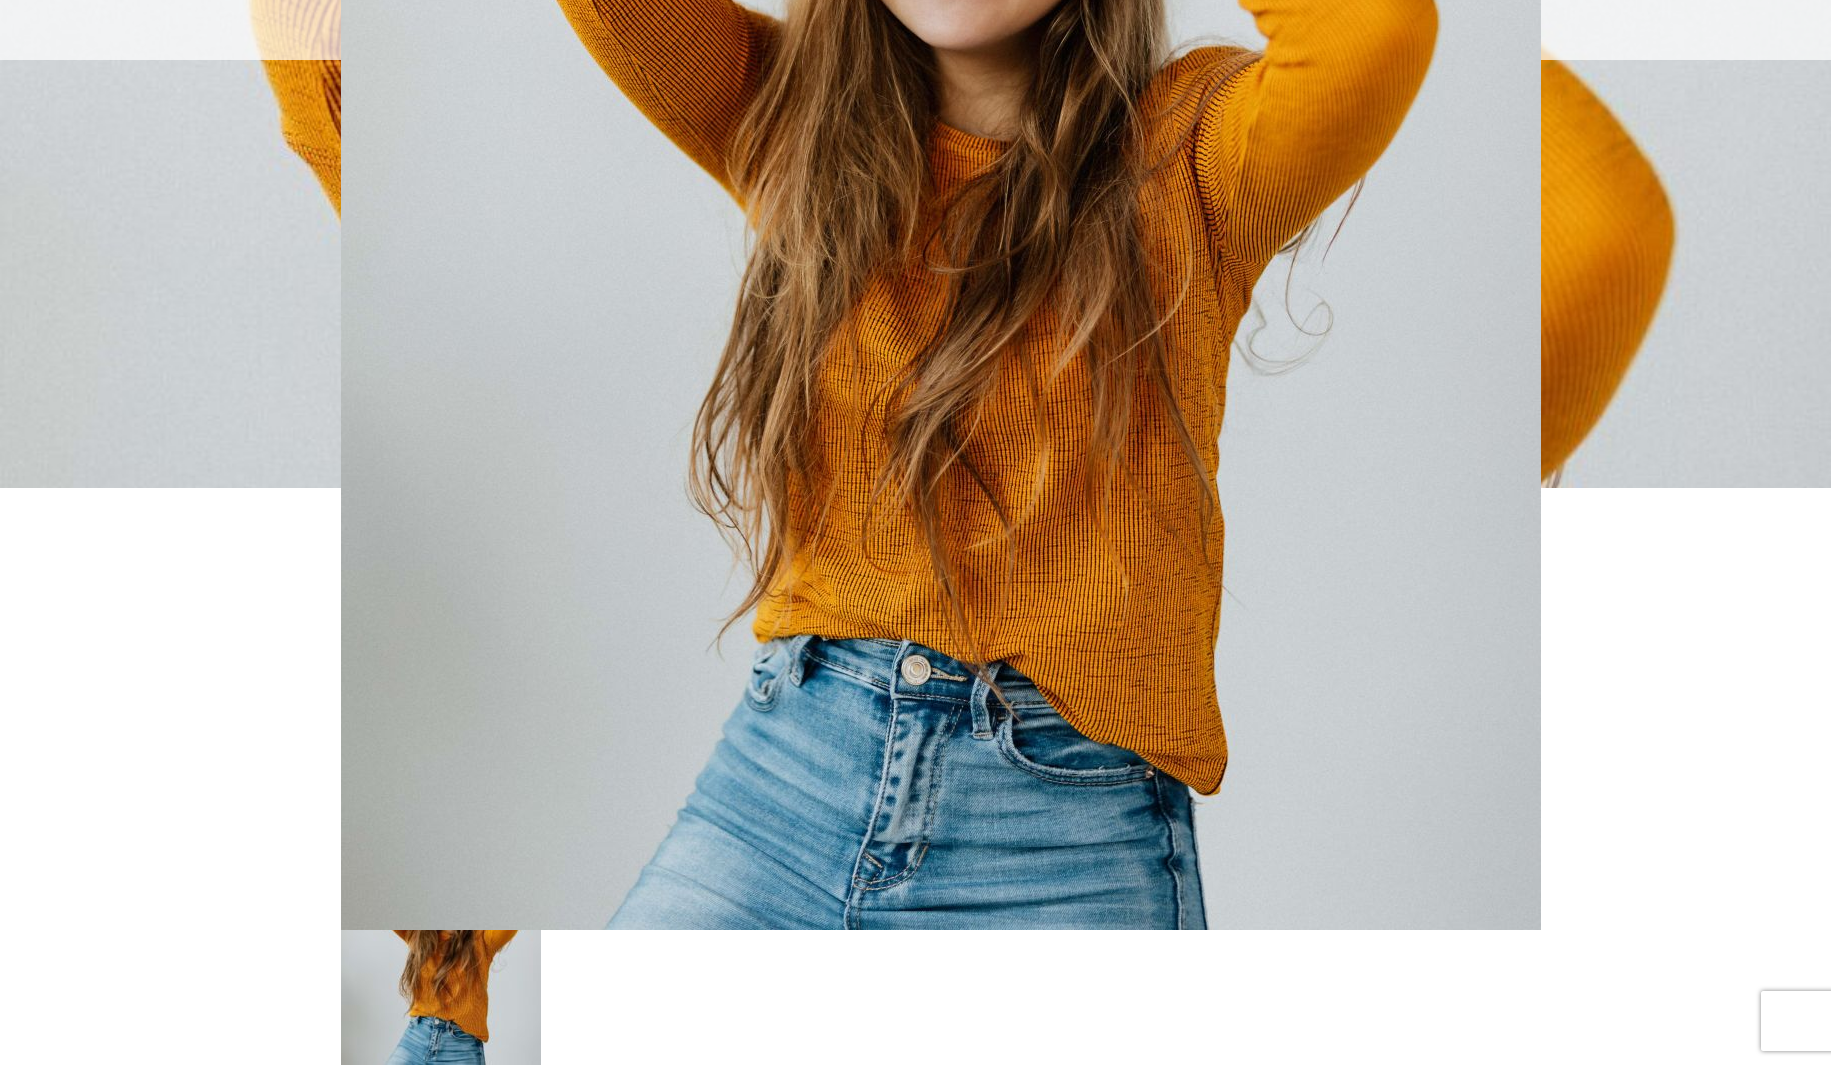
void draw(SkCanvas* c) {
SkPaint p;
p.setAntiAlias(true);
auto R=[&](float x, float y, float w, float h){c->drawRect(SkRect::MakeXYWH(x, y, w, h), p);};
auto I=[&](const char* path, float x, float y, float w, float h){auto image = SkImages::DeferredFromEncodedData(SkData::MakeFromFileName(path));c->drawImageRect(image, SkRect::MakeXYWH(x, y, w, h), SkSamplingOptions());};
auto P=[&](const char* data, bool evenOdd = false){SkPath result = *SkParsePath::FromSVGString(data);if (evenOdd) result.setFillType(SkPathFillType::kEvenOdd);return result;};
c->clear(0xffffffff);
I("1.png",0,0,1831,488);
I("2.png",341,930,200,135);
c->save();
c->clipPath(P("M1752 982h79v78h-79zm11 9h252c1 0 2 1 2 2v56c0 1-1 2-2 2h-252c-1 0-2-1-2-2v-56c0-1 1-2 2-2z",true),true);
p.setColor(0xff808080);
p.setMaskFilter(SkMaskFilter::MakeBlur(kNormal_SkBlurStyle, 2.5));
c->drawRoundRect(SkRect::MakeXYWH(1761,991,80,60),2,2,p);
p.setMaskFilter(nullptr);
c->restore();
p.setColor(0xb3ffffff);
R(0,0,1831,60);
I("3.png",341,0,1200,930);
}
